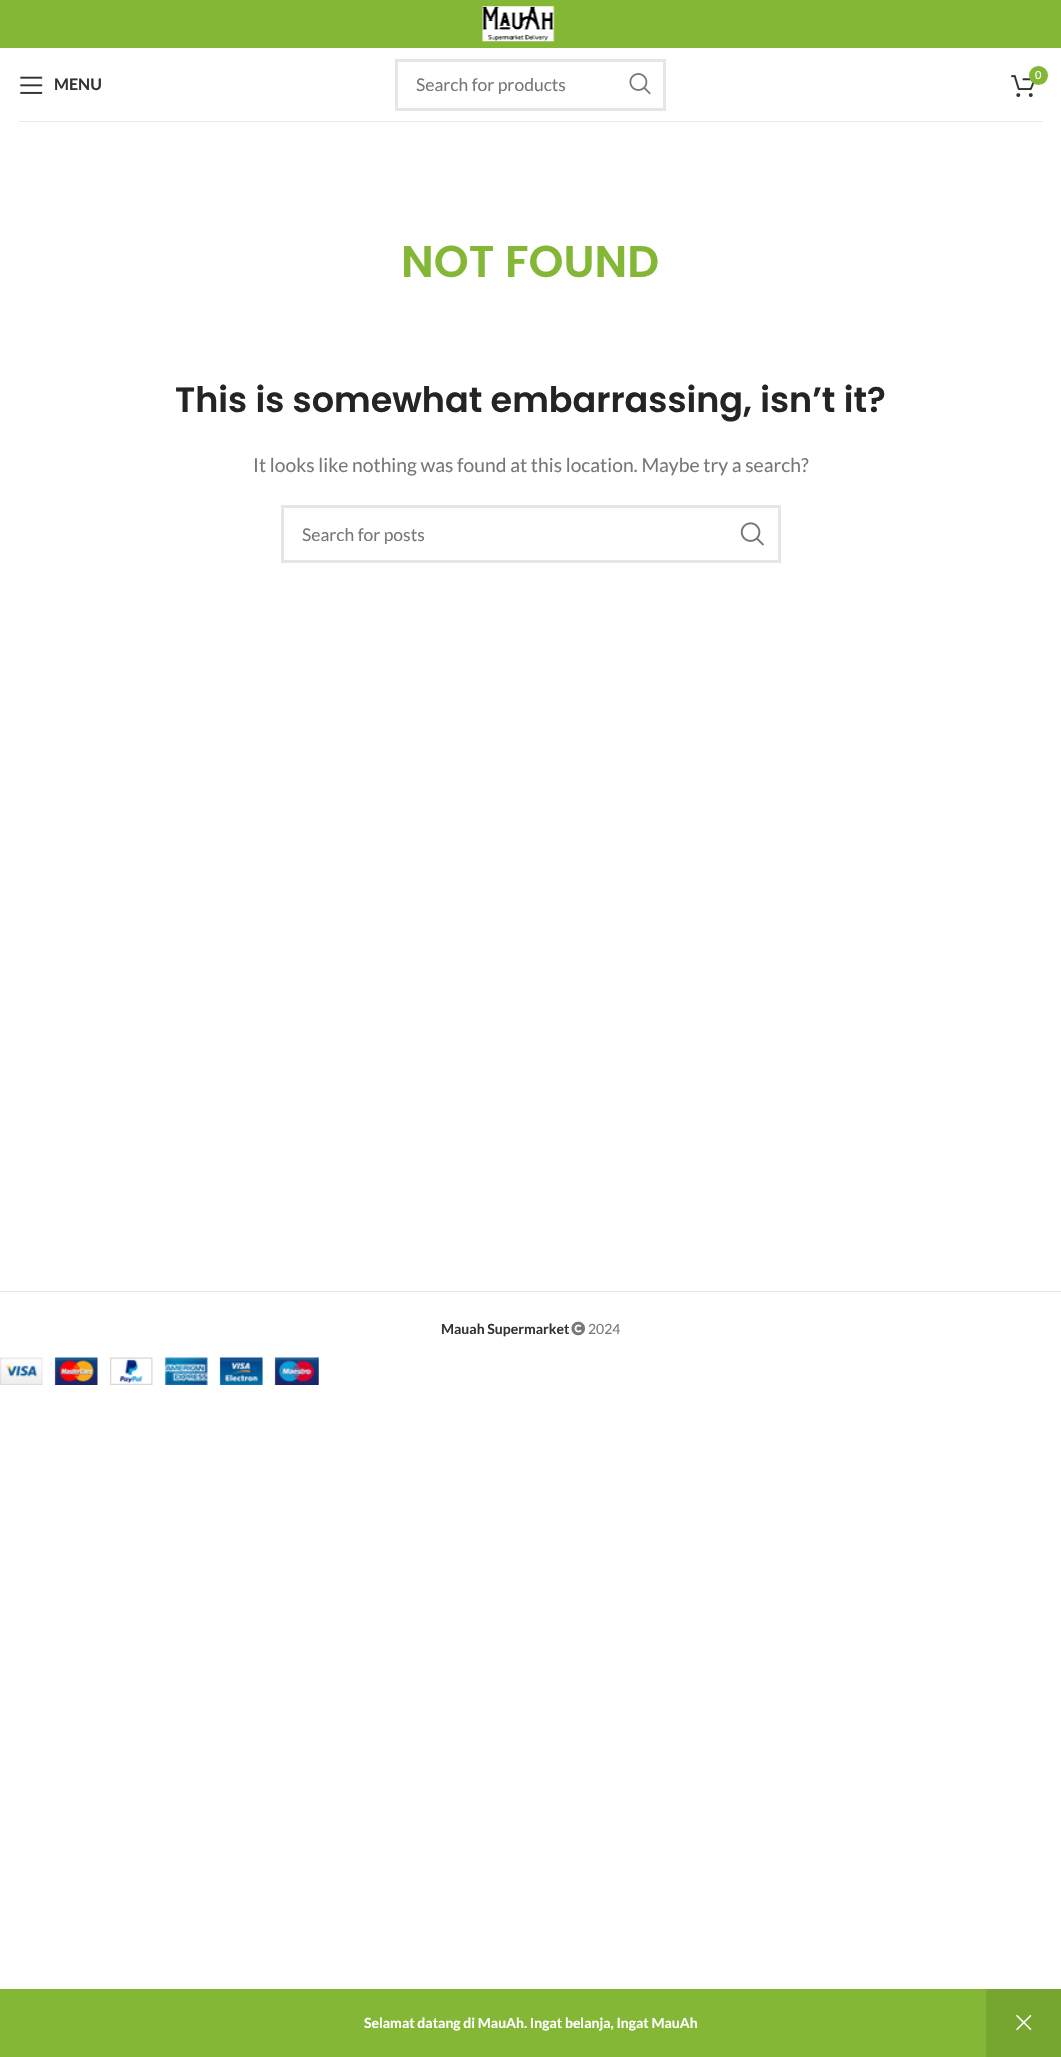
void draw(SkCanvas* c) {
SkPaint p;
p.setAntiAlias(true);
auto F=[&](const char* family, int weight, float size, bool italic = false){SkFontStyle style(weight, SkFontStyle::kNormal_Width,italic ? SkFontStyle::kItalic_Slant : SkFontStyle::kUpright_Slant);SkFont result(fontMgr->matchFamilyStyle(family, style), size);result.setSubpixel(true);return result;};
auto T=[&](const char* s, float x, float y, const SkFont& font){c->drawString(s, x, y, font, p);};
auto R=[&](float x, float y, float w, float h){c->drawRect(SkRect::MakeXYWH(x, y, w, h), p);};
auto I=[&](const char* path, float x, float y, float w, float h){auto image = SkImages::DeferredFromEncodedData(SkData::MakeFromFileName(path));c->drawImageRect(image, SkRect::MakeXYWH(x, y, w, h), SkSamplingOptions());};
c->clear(0xffffffff);
p.setColor(0xff83b735);
R(0,0,1061,48);
I("1.png",482,6,73,36);
p.setColor(0xffe8e8e8);
R(19,121,1024,1);
I("2.png",1011,75,24,22);
p.setColor(0xff83b735);
c->drawCircle(1038.5,75.5,9.5,p);
auto f1 = F("Lato",400,11);
p.setColor(0xffffffff);
T("0",1035,79,f1);
I("3.png",20,76,23,18);
auto f2 = F("Lato",700,16);
p.setColor(0xff333333);
T("MENU",54,90,f2);
p.setStroke(true);
p.setStrokeWidth(3);
p.setColor(0xffe6e6e6);
c->drawRect(SkRect::MakeXYWH(396.5,60.5,268,49),p);
auto f3 = F("Lato",400,17.5);
p.setStroke(false);
p.setColor(0xff777777);
T("Search for products",416,91,f3);
I("4.png",629,73,22,22);
auto f4 = F("Poppins",600,44.5);
p.setColor(0xff83b735);
T("NOT FOUND",401,277,f4);
auto f5 = F("Poppins",600,35);
p.setColor(0xff242424);
T("This is somewhat embarrassing, isn’t it?",175,412,f5);
auto f6 = F("Lato",400,19.25);
p.setColor(0xff777777);
T("It looks like nothing was found at this location. Maybe try a search?",253,472,f6);
p.setStroke(true);
p.setColor(0xffe6e6e6);
c->drawRect(SkRect::MakeXYWH(282.5,506.5,497,55),p);
p.setStroke(false);
p.setColor(0xff777777);
T("Search for posts",302,541,f3);
I("5.png",740,522,24,24);
p.setColor(0xffe4e4e4);
R(0,1291,1061,1);
auto f7 = F("Lato",700,14);
p.setColor(0xff333333);
T("Mauah Supermarket",441,1334,f7);
I("6.png",571,1321,14,15);
auto f8 = F("Lato",400,14);
p.setColor(0xff777777);
T("2024",588,1334,f8);
I("7.png",0,1357,319,28);
p.setColor(0xff83b735);
R(0,1989,986,68);
p.setColor(0xffffffff);
T("Selamat datang di MauAh. Ingat belanja, Ingat MauAh",364,2028,f7);
p.setColor(0xff76a530);
R(986,1989,75,68);
I("8.png",1016,2014,16,17);
}
